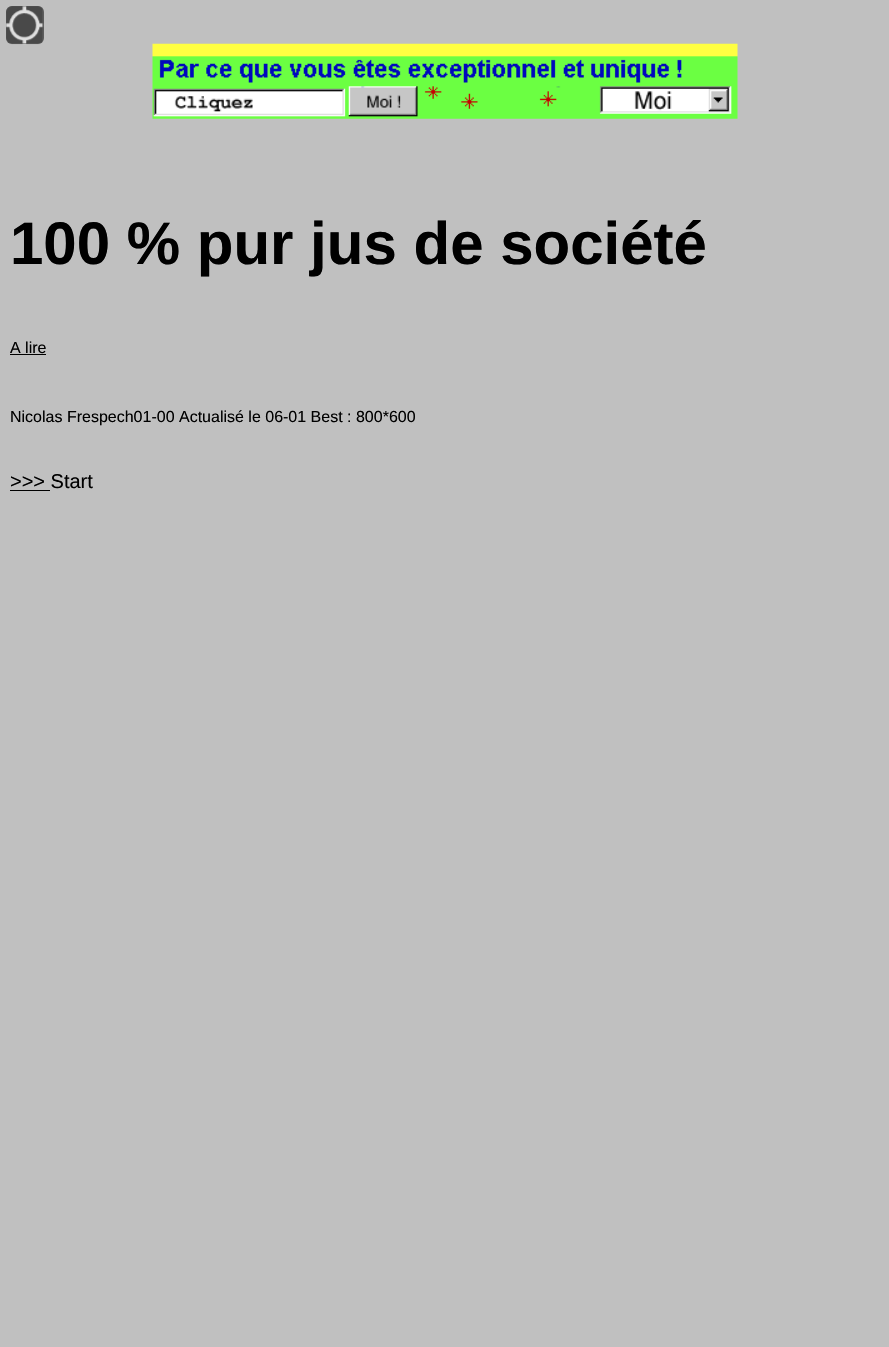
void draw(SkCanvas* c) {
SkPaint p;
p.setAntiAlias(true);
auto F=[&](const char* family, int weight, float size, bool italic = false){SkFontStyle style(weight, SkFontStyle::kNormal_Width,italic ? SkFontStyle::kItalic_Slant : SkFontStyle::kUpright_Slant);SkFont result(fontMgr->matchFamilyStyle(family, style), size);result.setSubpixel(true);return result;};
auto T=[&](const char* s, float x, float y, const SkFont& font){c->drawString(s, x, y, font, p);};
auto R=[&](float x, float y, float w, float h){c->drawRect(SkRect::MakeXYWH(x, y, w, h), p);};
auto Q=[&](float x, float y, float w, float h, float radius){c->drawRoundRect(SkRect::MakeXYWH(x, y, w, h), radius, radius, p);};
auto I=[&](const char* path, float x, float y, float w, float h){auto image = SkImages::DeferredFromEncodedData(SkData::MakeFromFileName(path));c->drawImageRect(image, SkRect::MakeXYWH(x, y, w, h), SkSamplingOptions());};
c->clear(0xffc0c0c0);
p.setColor(0xff5d5d5d);
Q(6,6,38,38,6);
I("1.png",6,6,38,39);
I("2.png",152,43,586,76);
auto f1 = F("Liberation Sans",700,60);
p.setColor(0xff000000);
T("100 % pur jus de société",10,264,f1);
auto f2 = F("Liberation Sans",400,16);
T("A lire",10,353,f2);
R(10,354,36,1);
T("Nicolas Frespech01-00 Actualisé le 06-01 Best : 800*600",10,422,f2);
auto f3 = F("Liberation Sans",400,20);
T(">>> Start",10,488,f3);
R(10,490,40,1);
}
